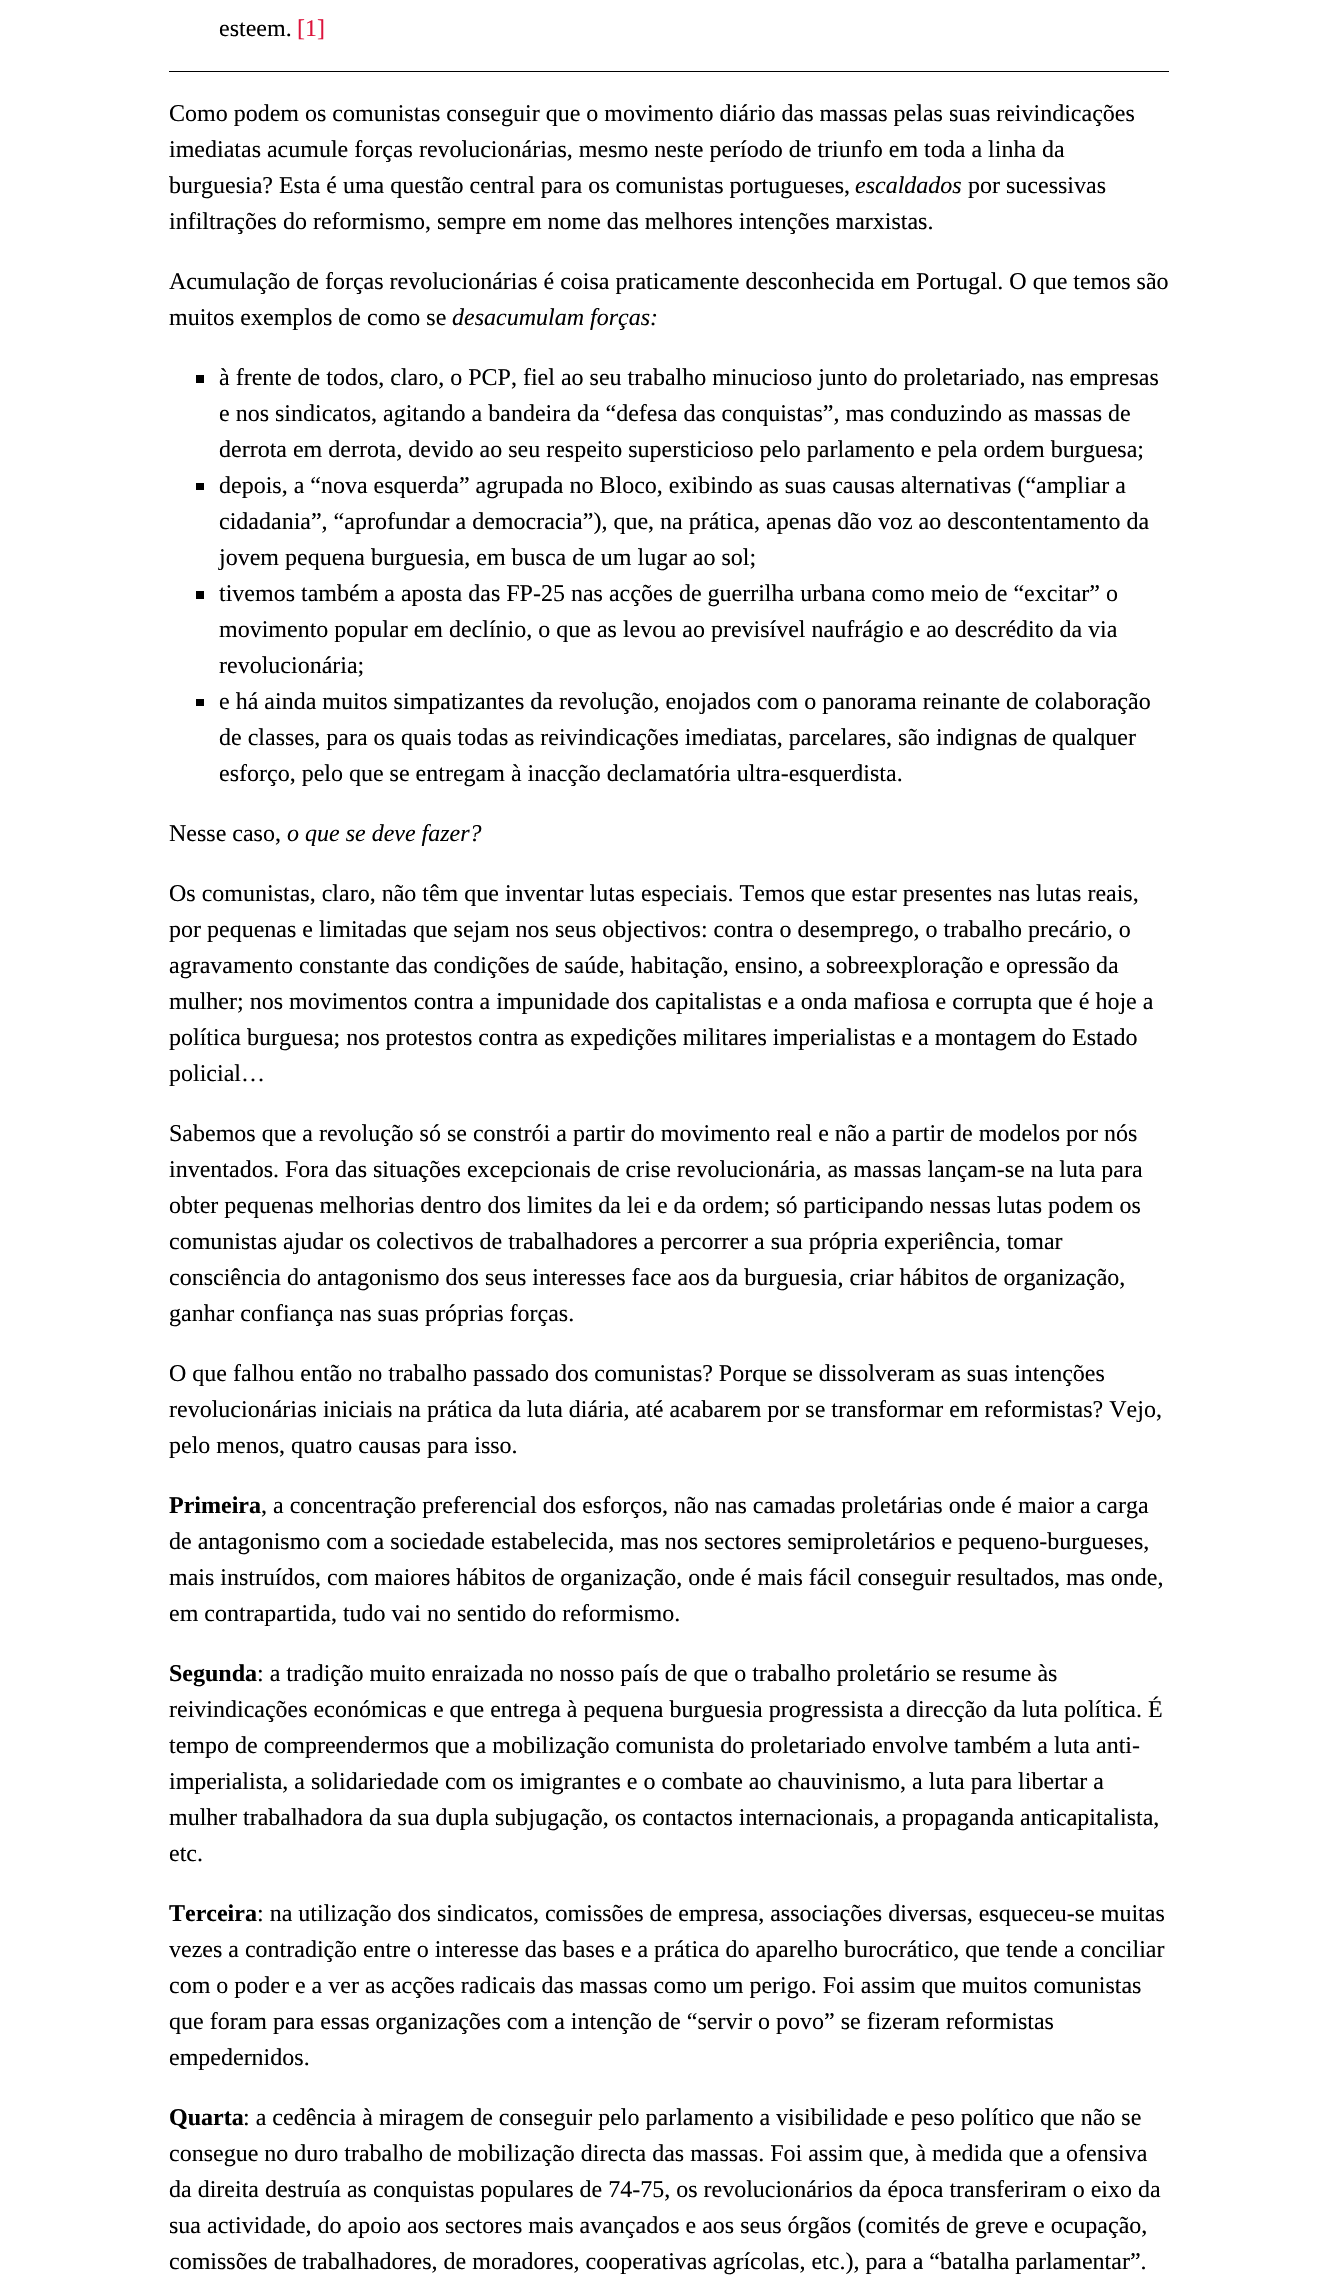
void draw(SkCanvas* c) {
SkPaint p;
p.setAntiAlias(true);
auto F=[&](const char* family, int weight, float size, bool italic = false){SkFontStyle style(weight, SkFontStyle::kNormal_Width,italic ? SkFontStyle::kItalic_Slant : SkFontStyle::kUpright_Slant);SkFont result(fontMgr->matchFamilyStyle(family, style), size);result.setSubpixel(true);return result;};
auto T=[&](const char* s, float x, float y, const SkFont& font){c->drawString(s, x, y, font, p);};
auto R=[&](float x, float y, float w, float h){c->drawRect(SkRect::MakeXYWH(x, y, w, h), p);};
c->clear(0xffffffff);
auto f1 = F("Liberation Serif",400,24);
p.setColor(0xff000000);
T("esteem.",219,36,f1);
p.setColor(0xffdc143c);
T("[1]",297,36,f1);
p.setColor(0xff000000);
R(169,71,1000,1);
T("Como podem os comunistas conseguir que o movimento diário das massas pelas suas reivindicações",169,121,f1);
T("imediatas acumule forças revolucionárias, mesmo neste período de triunfo em toda a linha da",169,157,f1);
T("burguesia? Esta é uma questão central para os comunistas portugueses,",169,193,f1);
auto f2 = F("Liberation Serif",400,24,true);
T("escaldados",855,193,f2);
T("por sucessivas",968,193,f1);
T("infiltrações do reformismo, sempre em nome das melhores intenções marxistas.",169,229,f1);
T("Acumulação de forças revolucionárias é coisa praticamente desconhecida em Portugal. O que temos são",169,289,f1);
T("muitos exemplos de como se",169,325,f1);
T("desacumulam forças:",452,325,f2);
R(196,375,8,8);
T("à frente de todos, claro, o PCP, fiel ao seu trabalho minucioso junto do proletariado, nas empresas",219,385,f1);
T("e nos sindicatos, agitando a bandeira da “defesa das conquistas”, mas conduzindo as massas de",219,421,f1);
T("derrota em derrota, devido ao seu respeito supersticioso pelo parlamento e pela ordem burguesa;",219,457,f1);
R(196,483,8,7);
T("depois, a “nova esquerda” agrupada no Bloco, exibindo as suas causas alternativas (“ampliar a",219,493,f1);
T("cidadania”, “aprofundar a democracia”), que, na prática, apenas dão voz ao descontentamento da",219,529,f1);
T("jovem pequena burguesia, em busca de um lugar ao sol;",219,565,f1);
R(196,591,8,8);
T("tivemos também a aposta das FP-25 nas acções de guerrilha urbana como meio de “excitar” o",219,601,f1);
T("movimento popular em declínio, o que as levou ao previsível naufrágio e ao descrédito da via",219,637,f1);
T("revolucionária;",219,673,f1);
R(196,699,8,7);
T("e há ainda muitos simpatizantes da revolução, enojados com o panorama reinante de colaboração",219,709,f1);
T("de classes, para os quais todas as reivindicações imediatas, parcelares, são indignas de qualquer",219,745,f1);
T("esforço, pelo que se entregam à inacção declamatória ultra-esquerdista.",219,781,f1);
T("Nesse caso,",169,841,f1);
T("o que se deve fazer?",287,841,f2);
T("Os comunistas, claro, não têm que inventar lutas especiais. Temos que estar presentes nas lutas reais,",169,901,f1);
T("por pequenas e limitadas que sejam nos seus objectivos: contra o desemprego, o trabalho precário, o",169,937,f1);
T("agravamento constante das condições de saúde, habitação, ensino, a sobreexploração e opressão da",169,973,f1);
T("mulher; nos movimentos contra a impunidade dos capitalistas e a onda mafiosa e corrupta que é hoje a",169,1009,f1);
T("política burguesa; nos protestos contra as expedições militares imperialistas e a montagem do Estado",169,1045,f1);
T("policial…",169,1081,f1);
T("Sabemos que a revolução só se constrói a partir do movimento real e não a partir de modelos por nós",169,1141,f1);
T("inventados. Fora das situações excepcionais de crise revolucionária, as massas lançam-se na luta para",169,1177,f1);
T("obter pequenas melhorias dentro dos limites da lei e da ordem; só participando nessas lutas podem os",169,1213,f1);
T("comunistas ajudar os colectivos de trabalhadores a percorrer a sua própria experiência, tomar",169,1249,f1);
T("consciência do antagonismo dos seus interesses face aos da burguesia, criar hábitos de organização,",169,1285,f1);
T("ganhar confiança nas suas próprias forças.",169,1321,f1);
T("O que falhou então no trabalho passado dos comunistas? Porque se dissolveram as suas intenções",169,1381,f1);
T("revolucionárias iniciais na prática da luta diária, até acabarem por se transformar em reformistas? Vejo,",169,1417,f1);
T("pelo menos, quatro causas para isso.",169,1453,f1);
auto f3 = F("Liberation Serif",700,24);
T("Primeira",169,1513,f3);
T(", a concentração preferencial dos esforços, não nas camadas proletárias onde é maior a carga",261,1513,f1);
T("de antagonismo com a sociedade estabelecida, mas nos sectores semiproletários e pequeno-burgueses,",169,1549,f1);
T("mais instruídos, com maiores hábitos de organização, onde é mais fácil conseguir resultados, mas onde,",169,1585,f1);
T("em contrapartida, tudo vai no sentido do reformismo.",169,1621,f1);
T("Segunda",169,1681,f3);
T(": a tradição muito enraizada no nosso país de que o trabalho proletário se resume às",257,1681,f1);
T("reivindicações económicas e que entrega à pequena burguesia progressista a direcção da luta política. É",169,1717,f1);
T("tempo de compreendermos que a mobilização comunista do proletariado envolve também a luta anti-",169,1753,f1);
T("imperialista, a solidariedade com os imigrantes e o combate ao chauvinismo, a luta para libertar a",169,1789,f1);
T("mulher trabalhadora da sua dupla subjugação, os contactos internacionais, a propaganda anticapitalista,",169,1825,f1);
T("etc.",169,1861,f1);
T("Terceira",169,1921,f3);
T(": na utilização dos sindicatos, comissões de empresa, associações diversas, esqueceu-se muitas",257,1921,f1);
T("vezes a contradição entre o interesse das bases e a prática do aparelho burocrático, que tende a conciliar",169,1957,f1);
T("com o poder e a ver as acções radicais das massas como um perigo. Foi assim que muitos comunistas",169,1993,f1);
T("que foram para essas organizações com a intenção de “servir o povo” se fizeram reformistas",169,2029,f1);
T("empedernidos.",169,2065,f1);
T("Quarta",169,2125,f3);
T(": a cedência à miragem de conseguir pelo parlamento a visibilidade e peso político que não se",243,2125,f1);
T("consegue no duro trabalho de mobilização directa das massas. Foi assim que, à medida que a ofensiva",169,2161,f1);
T("da direita destruía as conquistas populares de 74-75, os revolucionários da época transferiram o eixo da",169,2197,f1);
T("sua actividade, do apoio aos sectores mais avançados e aos seus órgãos (comités de greve e ocupação,",169,2233,f1);
T("comissões de trabalhadores, de moradores, cooperativas agrícolas, etc.), para a “batalha parlamentar”.",169,2269,f1);
}
